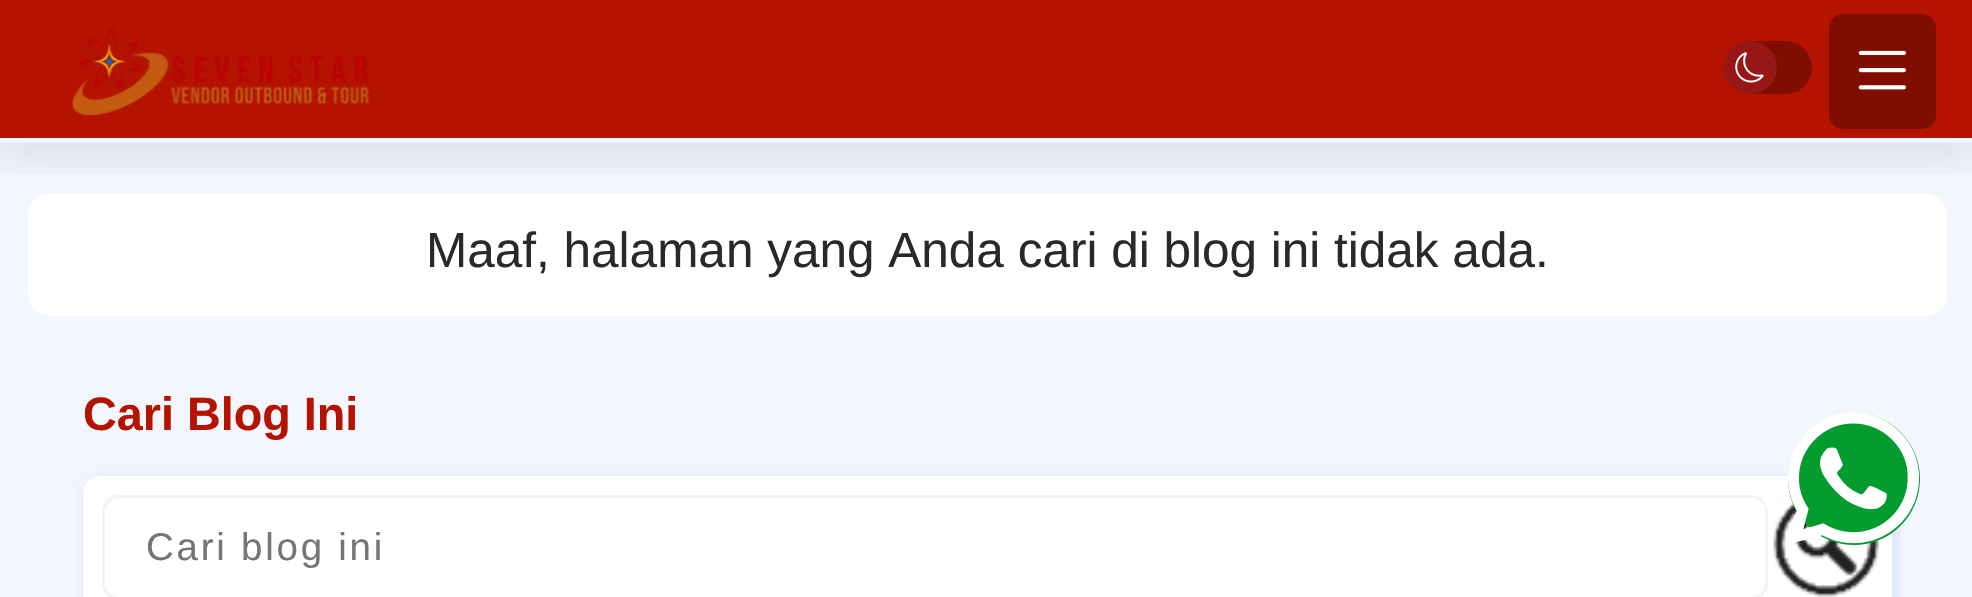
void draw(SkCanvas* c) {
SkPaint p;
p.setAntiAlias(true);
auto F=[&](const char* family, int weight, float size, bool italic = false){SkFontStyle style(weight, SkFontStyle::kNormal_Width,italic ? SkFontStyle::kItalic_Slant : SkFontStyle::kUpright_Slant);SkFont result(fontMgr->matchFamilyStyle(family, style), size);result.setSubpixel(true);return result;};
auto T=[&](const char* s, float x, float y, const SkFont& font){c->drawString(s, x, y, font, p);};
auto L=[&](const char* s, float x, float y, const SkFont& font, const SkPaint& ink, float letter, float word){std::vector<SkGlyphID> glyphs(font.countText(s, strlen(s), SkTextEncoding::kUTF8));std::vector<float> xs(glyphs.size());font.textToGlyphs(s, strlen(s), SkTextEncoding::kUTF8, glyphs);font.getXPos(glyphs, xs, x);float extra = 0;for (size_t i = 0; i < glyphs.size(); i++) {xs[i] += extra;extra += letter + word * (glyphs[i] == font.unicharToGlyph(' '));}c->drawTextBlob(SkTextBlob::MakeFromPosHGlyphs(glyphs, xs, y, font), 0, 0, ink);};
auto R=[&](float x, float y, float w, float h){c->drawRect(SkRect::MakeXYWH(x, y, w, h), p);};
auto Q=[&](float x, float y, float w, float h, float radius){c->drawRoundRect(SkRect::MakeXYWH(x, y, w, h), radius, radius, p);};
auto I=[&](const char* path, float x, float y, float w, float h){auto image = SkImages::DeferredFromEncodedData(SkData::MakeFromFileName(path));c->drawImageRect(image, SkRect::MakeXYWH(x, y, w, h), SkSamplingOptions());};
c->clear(0xffb51200);
p.setColor(0xfff3f6fd);
R(0,138,1972,459);
p.setColor(0xffffffff);
Q(28,193,1919,123,22);
c->save();
c->clipRect(SkRect::MakeXYWH(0,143,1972,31));
p.setColor(0x1a000000);
p.setMaskFilter(SkMaskFilter::MakeBlur(kNormal_SkBlurStyle, 20.5));
c->drawRect(SkRect::MakeXYWH(0,14,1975,143),p);
p.setMaskFilter(nullptr);
c->restore();
p.setColor(0xff7f0d00);
Q(1724,41,88,53,26.5);
p.setColor(0xff971717);
c->drawCircle(1750.5,67.5,26.5,p);
I("1.png",1735,52,29,31);
I("2.png",71,27,299,89);
p.setColor(0xff7f0d00);
Q(1829,14,107,115,14);
I("3.png",1858,50,48,40);
auto f1 = F("Liberation Sans",400,49.5);
p.setColor(0xff292929);
T("Maaf, halaman yang Anda cari di blog ini tidak ada.",426,267,f1);
auto f2 = F("Liberation Sans",700,46.75);
p.setColor(0xffb51200);
T("Cari Blog Ini",83,430,f2);
p.setColor(0xffdae5fe);
p.setMaskFilter(SkMaskFilter::MakeBlur(kNormal_SkBlurStyle, 4));
c->drawRoundRect(SkRect::MakeXYWH(83,476,1815,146),19,19,p);
p.setMaskFilter(nullptr);
p.setColor(0xffffffff);
Q(83,476,1809,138,17);
p.setStroke(true);
p.setStrokeWidth(3);
p.setColor(0xfff1f3f6);
c->drawRoundRect(SkRect::MakeXYWH(103.5,496.5,1663,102),15.5,15.5,p);
auto f3 = F("Liberation Sans",400,38.5);
p.setStroke(false);
p.setColor(0xff757575);
L("Cari blog ini",146,560,f3,p,2.75,0);
I("4.png",1773,502,107,95);
p.setColor(0xff049c2f);
c->drawCircle(1854,479,66,p);
I("5.png",1788,412,132,132);
}
